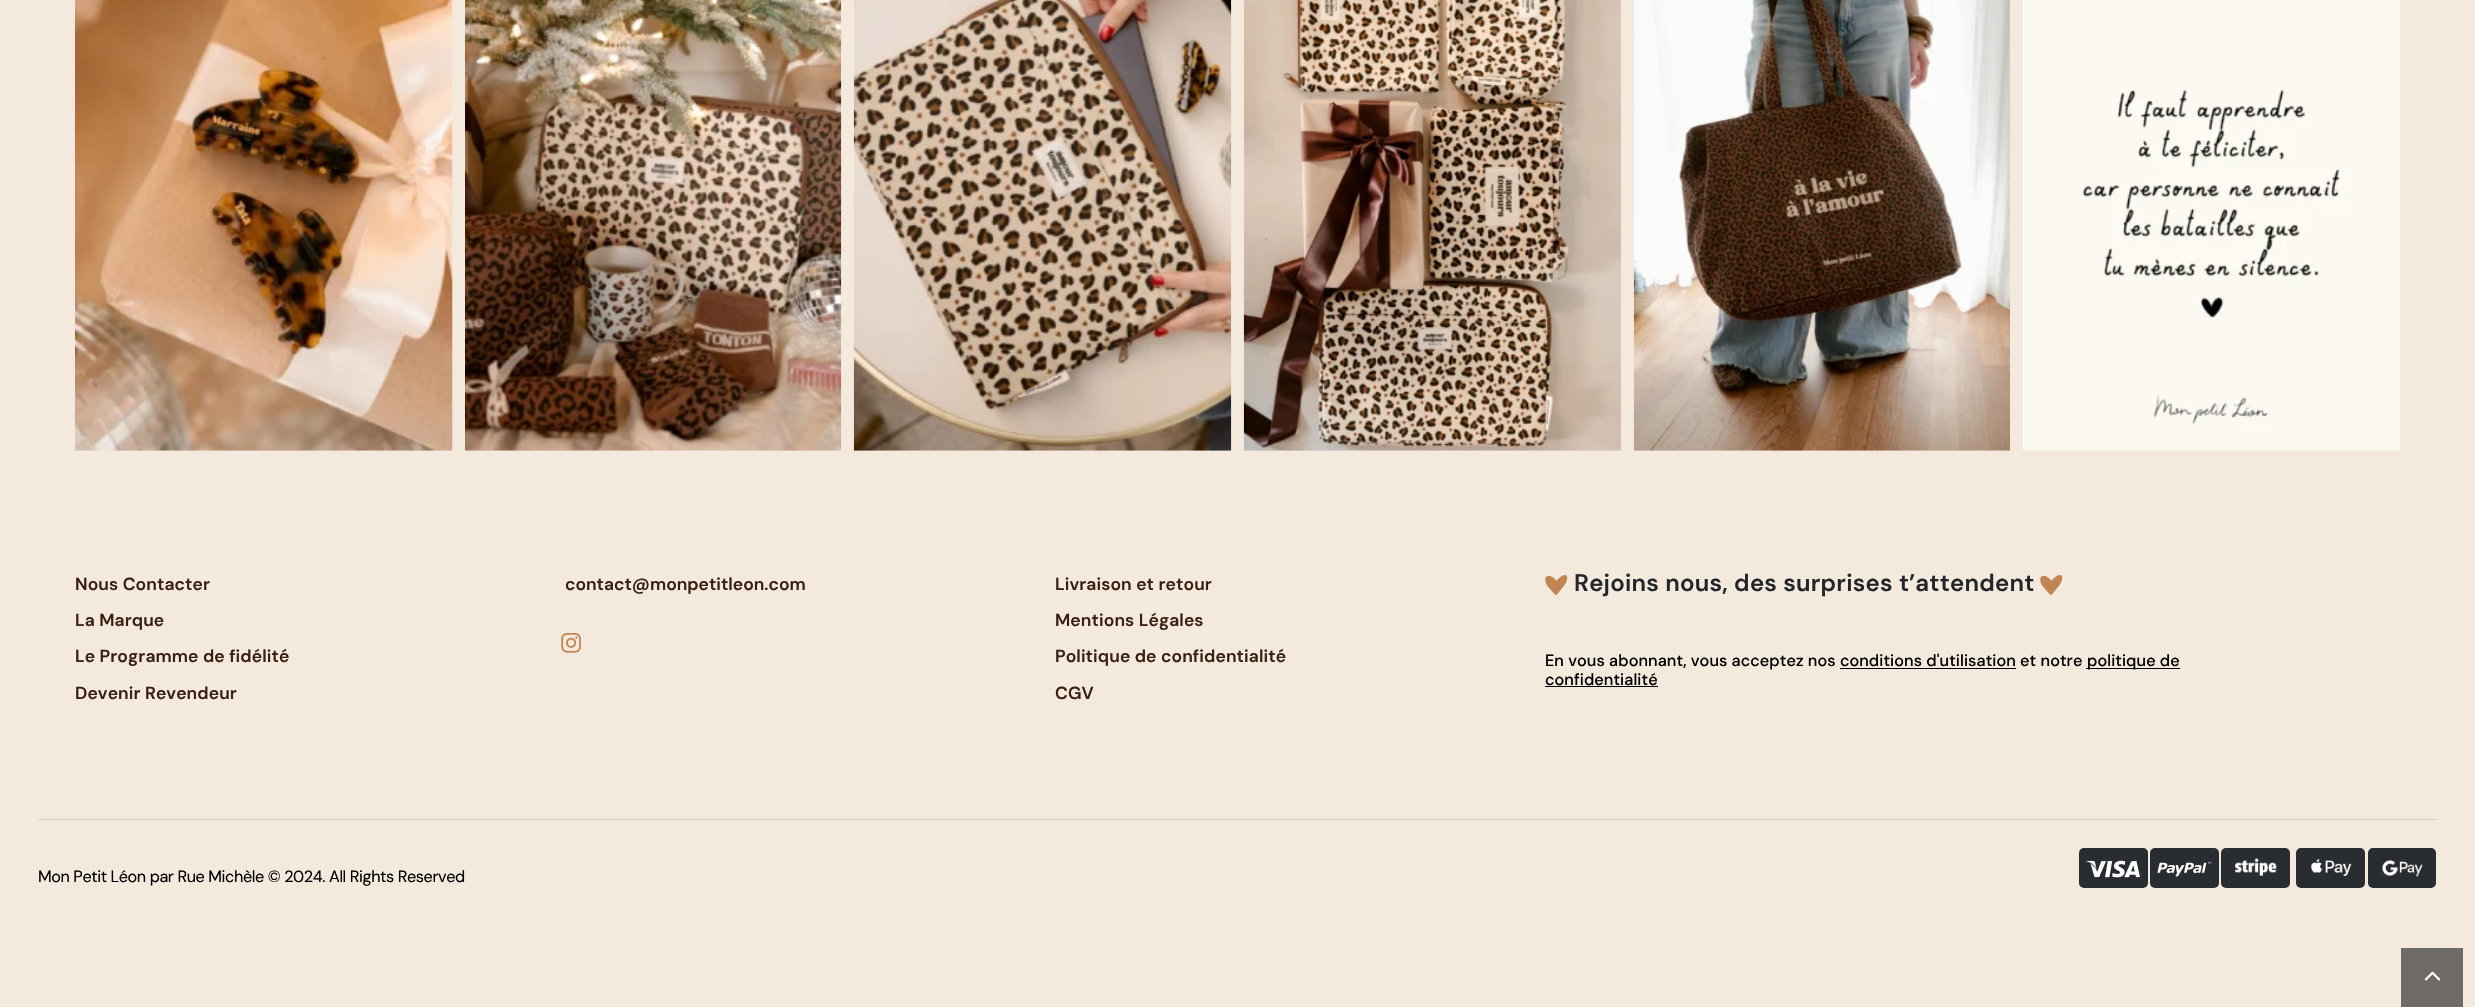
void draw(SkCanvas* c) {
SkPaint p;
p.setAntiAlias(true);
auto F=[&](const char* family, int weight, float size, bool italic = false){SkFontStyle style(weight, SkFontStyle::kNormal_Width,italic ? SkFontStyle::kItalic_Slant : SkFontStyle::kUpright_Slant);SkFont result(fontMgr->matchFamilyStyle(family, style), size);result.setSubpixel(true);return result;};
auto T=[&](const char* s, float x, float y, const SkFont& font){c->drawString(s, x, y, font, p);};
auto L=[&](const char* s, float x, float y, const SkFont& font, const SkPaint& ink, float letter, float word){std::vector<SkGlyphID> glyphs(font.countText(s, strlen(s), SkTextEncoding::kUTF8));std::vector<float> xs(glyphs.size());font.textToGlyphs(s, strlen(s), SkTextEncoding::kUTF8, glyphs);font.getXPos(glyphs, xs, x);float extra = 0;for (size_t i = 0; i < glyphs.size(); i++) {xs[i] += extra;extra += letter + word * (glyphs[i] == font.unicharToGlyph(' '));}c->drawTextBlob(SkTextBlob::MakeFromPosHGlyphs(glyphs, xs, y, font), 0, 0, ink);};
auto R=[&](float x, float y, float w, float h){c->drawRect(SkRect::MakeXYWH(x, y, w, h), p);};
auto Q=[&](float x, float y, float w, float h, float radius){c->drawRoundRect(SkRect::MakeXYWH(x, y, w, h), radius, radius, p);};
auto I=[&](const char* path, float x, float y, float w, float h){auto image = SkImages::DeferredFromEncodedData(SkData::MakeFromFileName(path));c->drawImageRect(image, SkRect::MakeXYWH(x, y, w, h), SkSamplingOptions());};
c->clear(0xfff3e9dc);
I("1.png",75,0,378,451);
I("2.png",465,0,377,451);
I("3.png",853,0,379,451);
I("4.png",1243,0,378,451);
I("5.png",1633,0,377,451);
I("6.png",2022,0,378,451);
auto f1 = F("DM Sans",600,17.5);
p.setColor(0xff3a1f13);
L("Nous Contacter",75,590,f1,p,.1,0);
L("La Marque",75,626,f1,p,.1,0);
L("Le Programme de fidélité",75,662,f1,p,.1,0);
L("Devenir Revendeur",75,699,f1,p,.1,0);
T("contact@monpetitleon.com",565,590,f1);
I("7.png",561,633,20,20);
L("Livraison et retour",1055,590,f1,p,.1,0);
L("Mentions Légales",1055,626,f1,p,.1,0);
L("Politique de confidentialité",1055,662,f1,p,.1,0);
L("CGV",1055,699,f1,p,.1,0);
I("8.png",1545,575,23,20);
auto f2 = F("DM Sans",600,24);
p.setColor(0xff222529);
L("Rejoins nous, des surprises t’attendent",1574,591,f2,p,.25,0);
I("8.png",2040,575,23,20);
auto f3 = F("DM Sans",500,16.25);
p.setColor(0xff000000);
L("En vous abonnant, vous acceptez nos conditions d'utilisation et notre",1545,666,f3,p,.08,0);
R(2086,668,94,1);
L("politique de",2087,666,f3,p,.08,0);
R(1840,668,176,1);
L("confidentialité",1545,685,f3,p,.08,0);
R(1545,686,113,1);
p.setColor(0xffd7d2ca);
R(38,819,2400,1);
auto f4 = F("DM Sans",400,16.25);
p.setColor(0xff000000);
L("Mon Petit Léon par Rue Michèle © 2024. All Rights Reserved",38,882,f4,p,-.4,0);
p.setColor(0xff292c30);
Q(2079,848,69,40,5);
I("9.png",2086,860,54,18);
Q(2150,848,69,40,5);
I("10.png",2157,861,55,16);
Q(2221,848,69,40,5);
I("11.png",2235,858,42,18);
Q(2296,848,69,40,5);
I("12.png",2311,859,41,17);
Q(2368,848,68,40,5);
I("13.png",2382,860,41,17);
p.setColor(0xff6d6a67);
R(2401,948,62,59);
I("14.png",2424,971,17,10);
}
